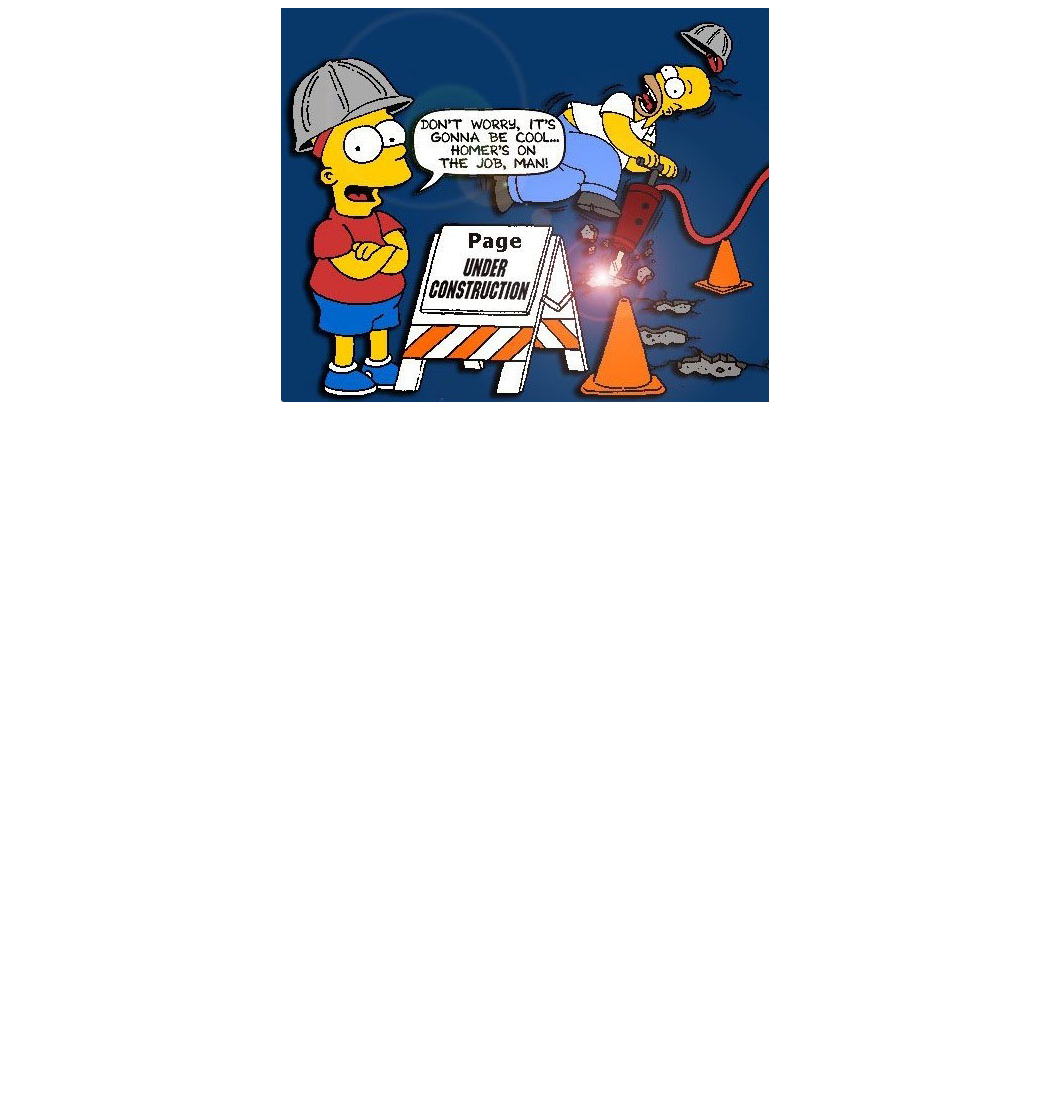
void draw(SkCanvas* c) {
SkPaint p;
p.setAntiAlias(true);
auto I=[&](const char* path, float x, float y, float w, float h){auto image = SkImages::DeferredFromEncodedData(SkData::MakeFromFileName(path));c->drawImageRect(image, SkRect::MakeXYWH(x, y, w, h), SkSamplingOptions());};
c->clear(0xffffffff);
I("1.png",281,8,488,394);
}
